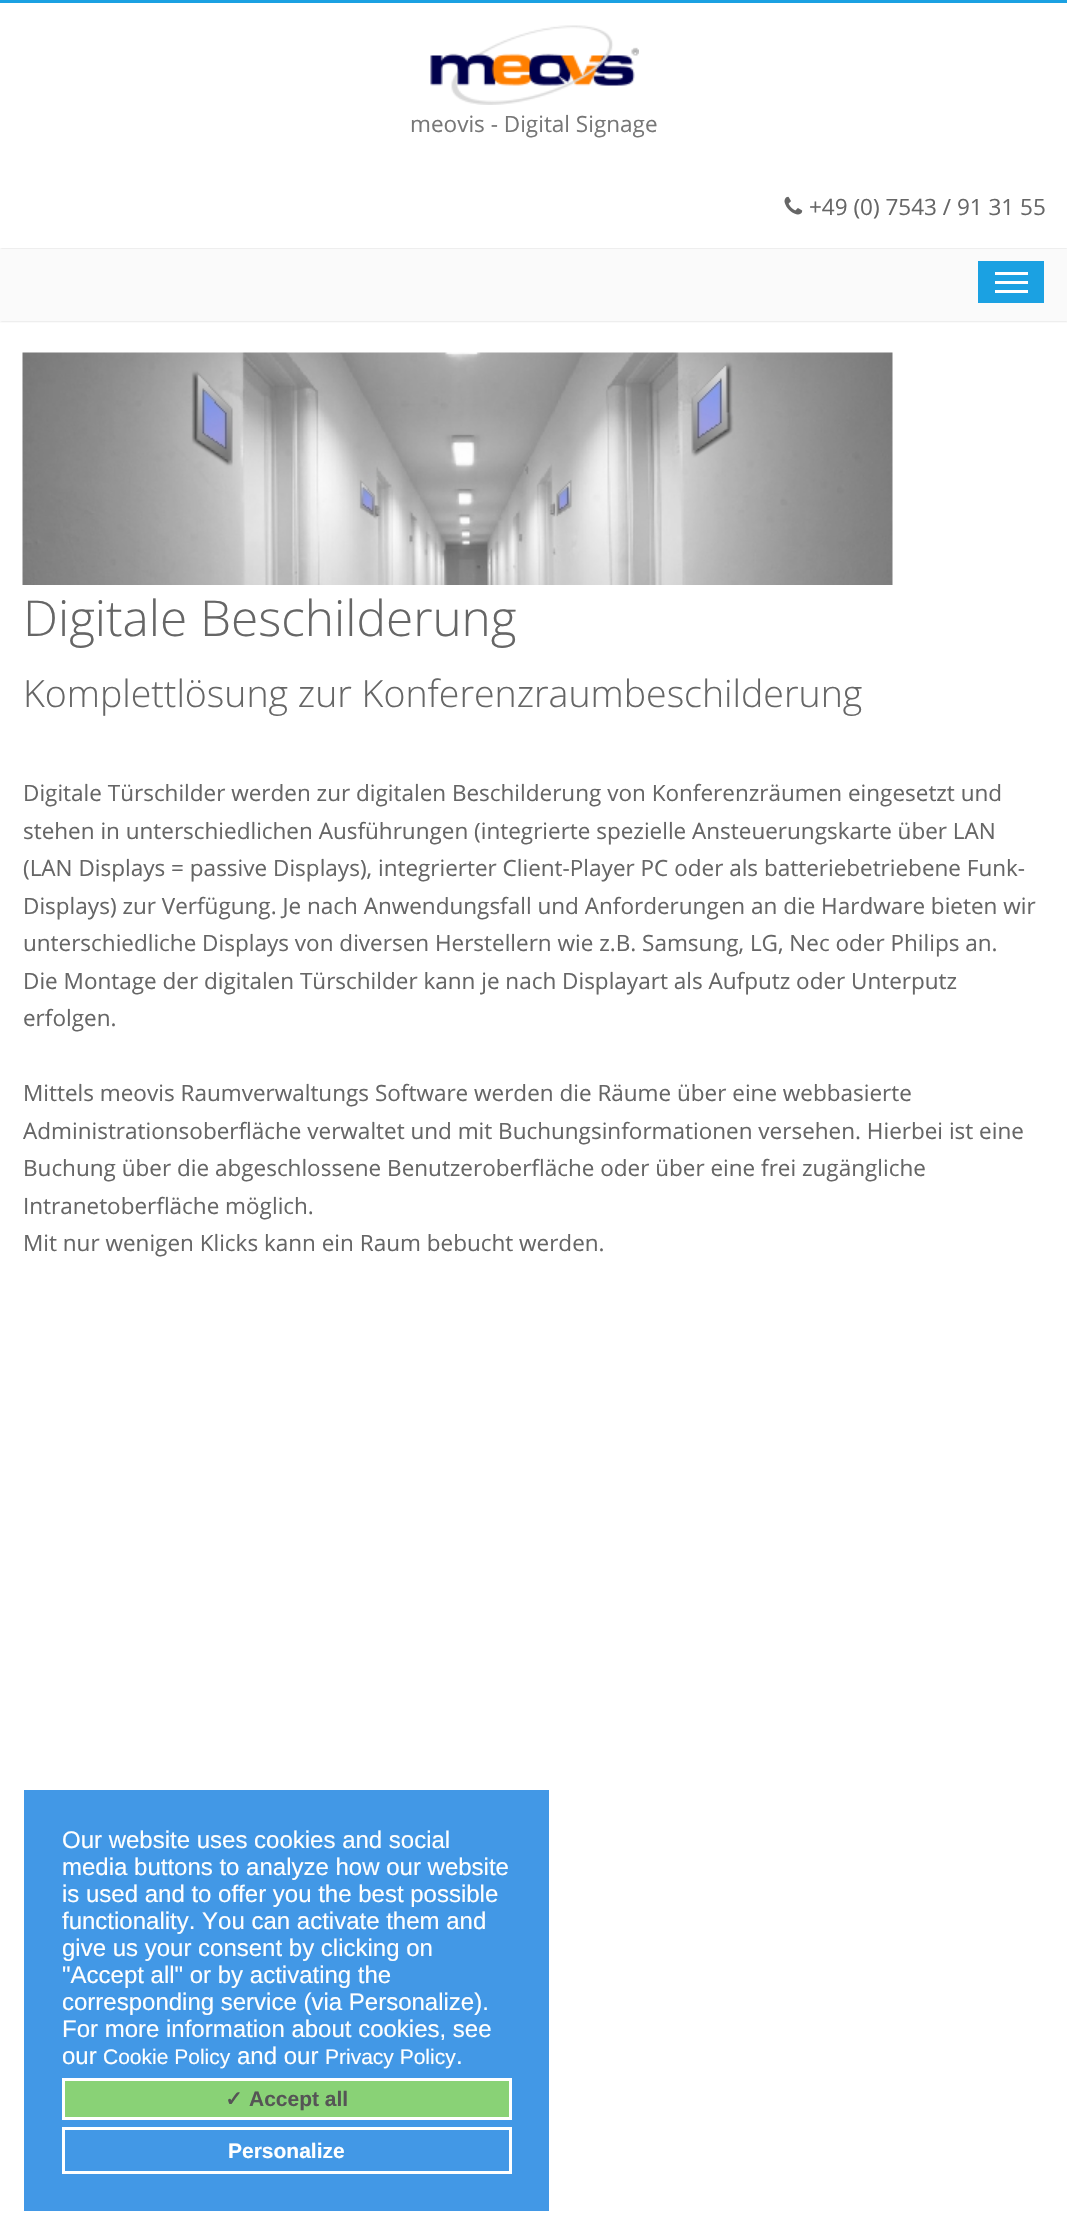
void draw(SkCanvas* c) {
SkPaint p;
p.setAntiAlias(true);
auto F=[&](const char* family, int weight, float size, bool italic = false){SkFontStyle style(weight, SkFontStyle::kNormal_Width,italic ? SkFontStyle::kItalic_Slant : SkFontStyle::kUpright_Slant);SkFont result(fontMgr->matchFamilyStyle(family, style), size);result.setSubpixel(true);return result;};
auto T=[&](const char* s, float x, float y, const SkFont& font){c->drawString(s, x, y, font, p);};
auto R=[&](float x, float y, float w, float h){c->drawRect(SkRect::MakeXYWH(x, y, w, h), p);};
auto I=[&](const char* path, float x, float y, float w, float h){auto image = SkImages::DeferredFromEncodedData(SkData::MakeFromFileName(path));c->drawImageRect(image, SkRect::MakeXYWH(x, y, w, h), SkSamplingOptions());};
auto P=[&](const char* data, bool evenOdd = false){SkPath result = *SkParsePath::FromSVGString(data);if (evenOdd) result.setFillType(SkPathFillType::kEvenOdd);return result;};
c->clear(0xffffffff);
p.setColor(0xff1ba1e2);
R(0,0,1067,3);
I("1.png",430,25,209,80);
auto f1 = F("Open Sans",400,22.5);
p.setColor(0xff777777);
T("meovis - Digital Signage",410,132,f1);
I("2.png",784,196,19,19);
p.setColor(0xff666666);
T("+49 (0) 7543 / 91 31 55",809,215,f1);
p.setColor(0xfffafafa);
R(0,248,1067,75);
p.setColor(0xffeeeeee);
c->drawPath(P("M0 248h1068l-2 1h-1064z"),p);
c->drawPath(P("M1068 322h-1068l2-1h1064z"),p);
p.setColor(0xff1ba1e2);
R(978,261,66,42);
p.setColor(0xffffffff);
R(995,272,33,3);
R(995,281,33,3);
R(995,290,33,3);
I("3.png",22,352,871,233);
auto f2 = F("Open Sans",300,49.5);
p.setColor(0xff666666);
T("Digitale Beschilderung",23,636,f2);
auto f3 = F("Open Sans",300,37.5);
T("Komplettlösung zur Konferenzraumbeschilderung",23,707,f3);
T("Digitale Türschilder werden zur digitalen Beschilderung von Konferenzräumen eingesetzt und",23,801,f1);
T("stehen in unterschiedlichen Ausführungen (integrierte spezielle Ansteuerungskarte über LAN",23,839,f1);
T("(LAN Displays = passive Displays), integrierter Client-Player PC oder als batteriebetriebene Funk-",23,876,f1);
T("Displays) zur Verfügung. Je nach Anwendungsfall und Anforderungen an die Hardware bieten wir",23,914,f1);
T("unterschiedliche Displays von diversen Herstellern wie z.B. Samsung, LG, Nec oder Philips an.",23,951,f1);
T("Die Montage der digitalen Türschilder kann je nach Displayart als Aufputz oder Unterputz",23,989,f1);
T("erfolgen.",23,1026,f1);
T("Mittels meovis Raumverwaltungs Software werden die Räume über eine webbasierte",23,1101,f1);
T("Administrationsoberfläche verwaltet und mit Buchungsinformationen versehen. Hierbei ist eine",23,1139,f1);
T("Buchung über die abgeschlossene Benutzeroberfläche oder über eine frei zugängliche",23,1176,f1);
T("Intranetoberfläche möglich.",23,1214,f1);
T("Mit nur wenigen Klicks kann ein Raum bebucht werden.",23,1251,f1);
p.setColor(0xff4298e6);
R(24,1790,525,421);
auto f4 = F("Liberation Sans",400,24);
p.setColor(0xffffffff);
T("Our website uses cookies and social",62,1848,f4);
T("media buttons to analyze how our website",62,1875,f4);
T("is used and to offer you the best possible",62,1902,f4);
T("functionality. You can activate them and",62,1929,f4);
T("give us your consent by clicking on",62,1956,f4);
T("\"Accept all\" or by activating the",62,1983,f4);
T("corresponding service (via Personalize).",62,2010,f4);
T("For more information about cookies, see",62,2037,f4);
T("our",62,2064,f4);
auto f5 = F("Liberation Sans",400,21);
T("Cookie Policy",103,2064,f5);
T("and our",237,2064,f4);
T("Privacy Policy",325,2064,f5);
T(".",456,2064,f4);
p.setColor(0xff89d276);
c->drawRect(SkRect::MakeXYWH(63.5,2079.5,447,39),p);
p.setStroke(true);
p.setStrokeWidth(3);
p.setColor(0xffffffff);
c->drawRect(SkRect::MakeXYWH(63.5,2079.5,447,39),p);
auto f6 = F("DejaVu Sans",700,21);
p.setStroke(false);
p.setColor(0xff555555);
T("✓",225,2106,f6);
auto f7 = F("Liberation Sans",700,21);
T("Accept all",249,2106,f7);
p.setStroke(true);
p.setColor(0xffffffff);
c->drawRect(SkRect::MakeXYWH(63.5,2128.5,447,44),p);
p.setStroke(false);
T("Personalize",228,2158,f7);
}
